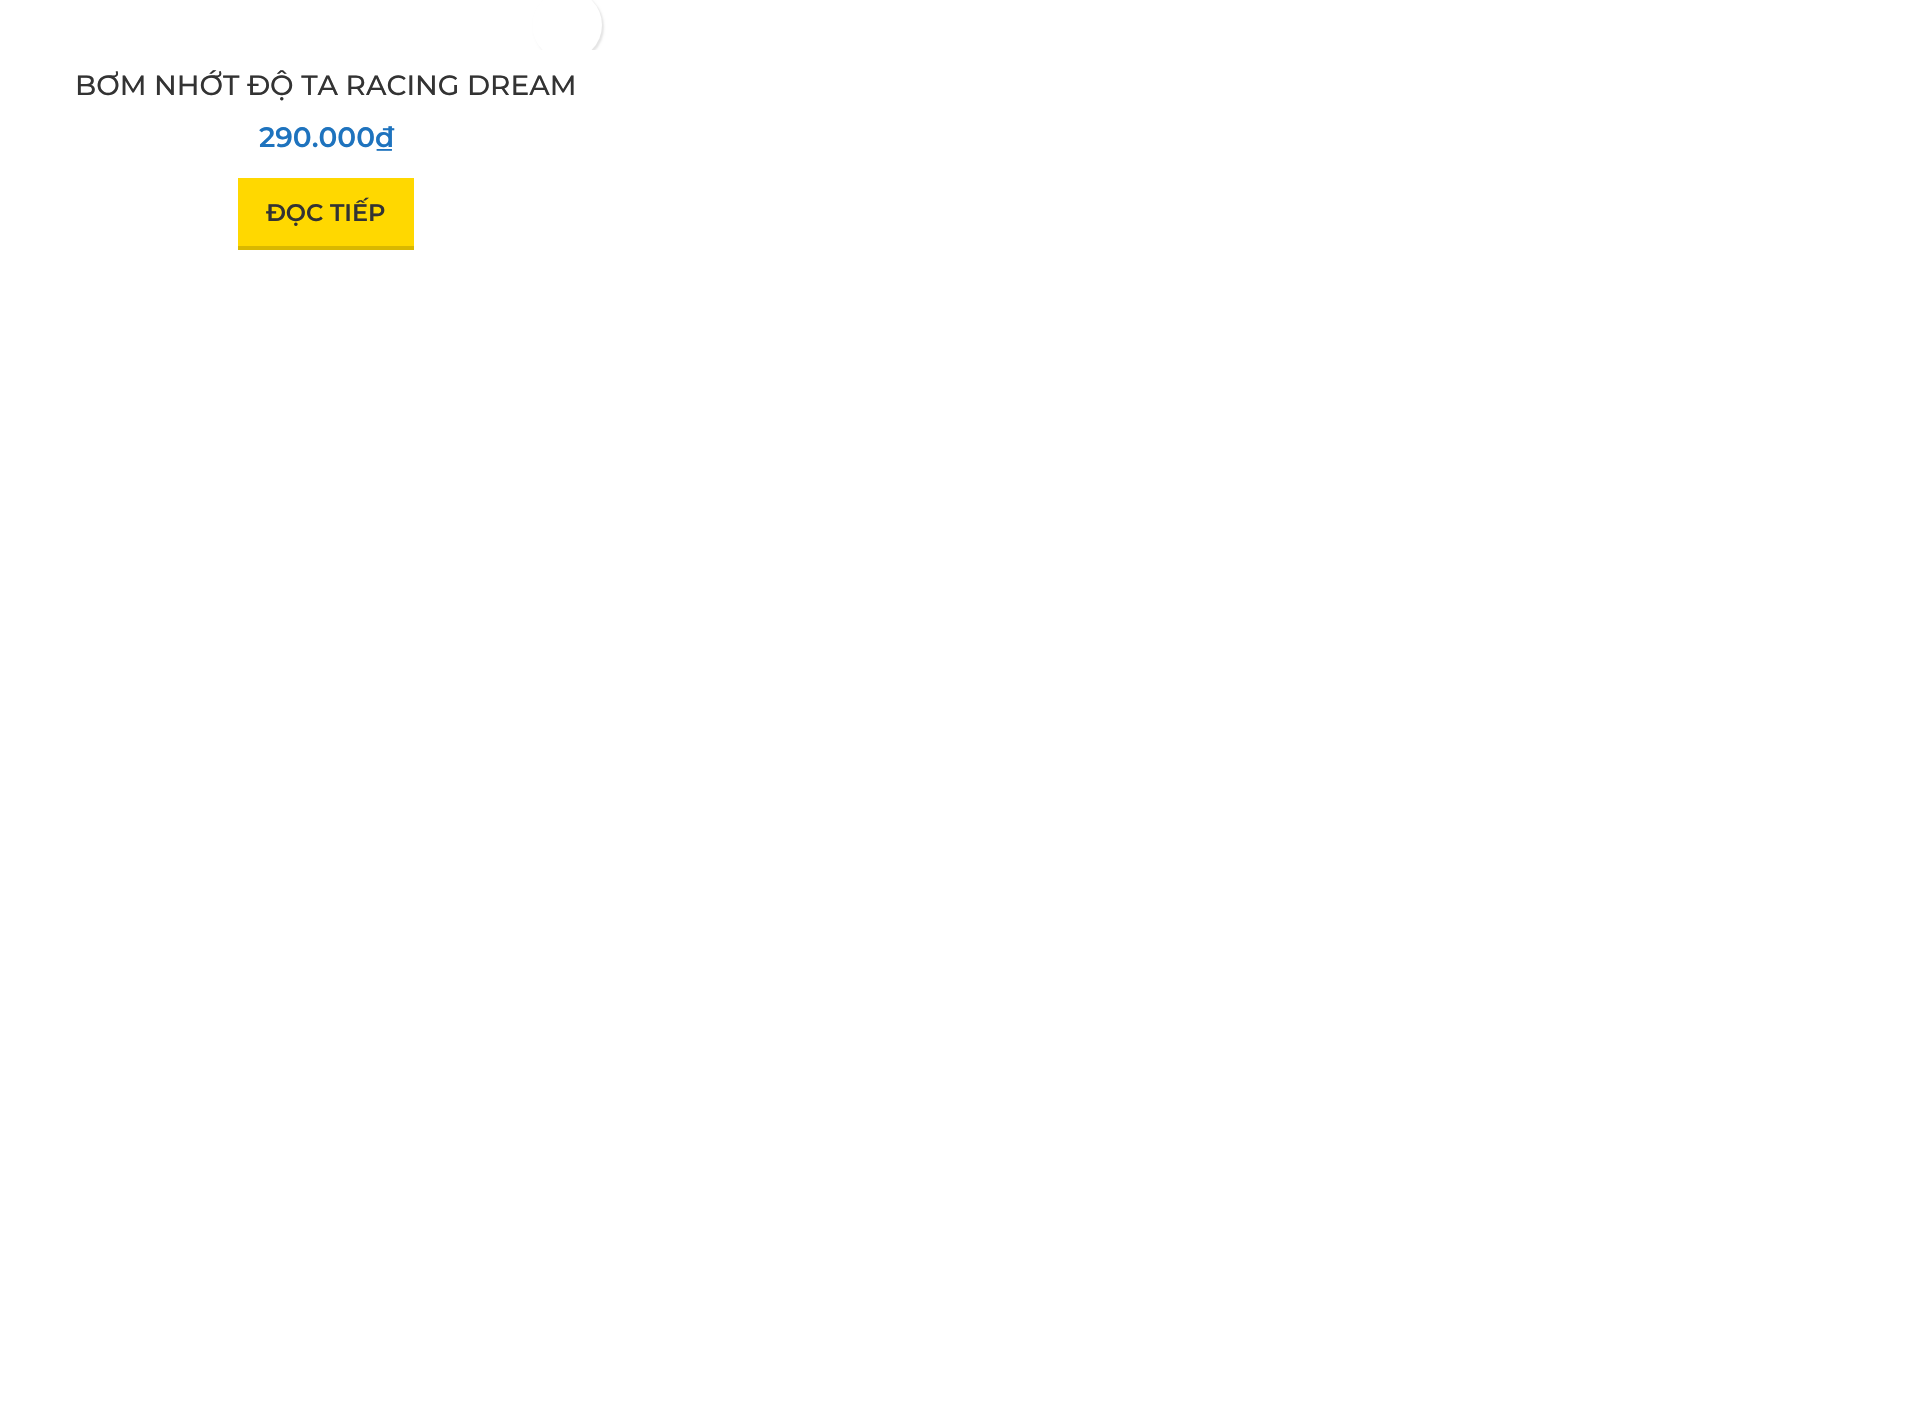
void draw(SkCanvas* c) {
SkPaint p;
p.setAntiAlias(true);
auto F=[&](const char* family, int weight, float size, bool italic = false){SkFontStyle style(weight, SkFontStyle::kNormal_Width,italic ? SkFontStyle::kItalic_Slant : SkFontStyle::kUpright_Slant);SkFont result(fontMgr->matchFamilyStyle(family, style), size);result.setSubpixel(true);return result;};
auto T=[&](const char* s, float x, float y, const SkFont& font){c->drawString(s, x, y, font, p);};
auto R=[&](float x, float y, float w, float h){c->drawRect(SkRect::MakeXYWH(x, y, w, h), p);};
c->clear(0xffffffff);
c->save();
c->clipRect(SkRect::MakeXYWH(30,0,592,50));
p.setColor(0x1a000000);
p.setMaskFilter(SkMaskFilter::MakeBlur(kNormal_SkBlurStyle, 1));
c->drawRoundRect(SkRect::MakeXYWH(534,-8,70,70),35,35,p);
p.setMaskFilter(nullptr);
c->restore();
c->save();
c->clipRect(SkRect::MakeXYWH(30,0,592,50));
p.setColor(0xffffffff);
c->drawCircle(567,25,35,p);
c->restore();
auto f1 = F("Montserrat",500,28);
p.setColor(0xff333333);
T("BƠM NHỚT ĐỘ TA RACING DREAM",75,95,f1);
auto f2 = F("Montserrat",600,28);
p.setColor(0xff1e73be);
T("290.000₫",259,147,f2);
p.setColor(0xffffd800);
R(238,178,176,68);
p.setColor(0xffd9b800);
R(238,246,176,4);
auto f3 = F("Montserrat",600,24);
p.setColor(0xff333333);
T("ĐỌC TIẾP",266,221,f3);
}
